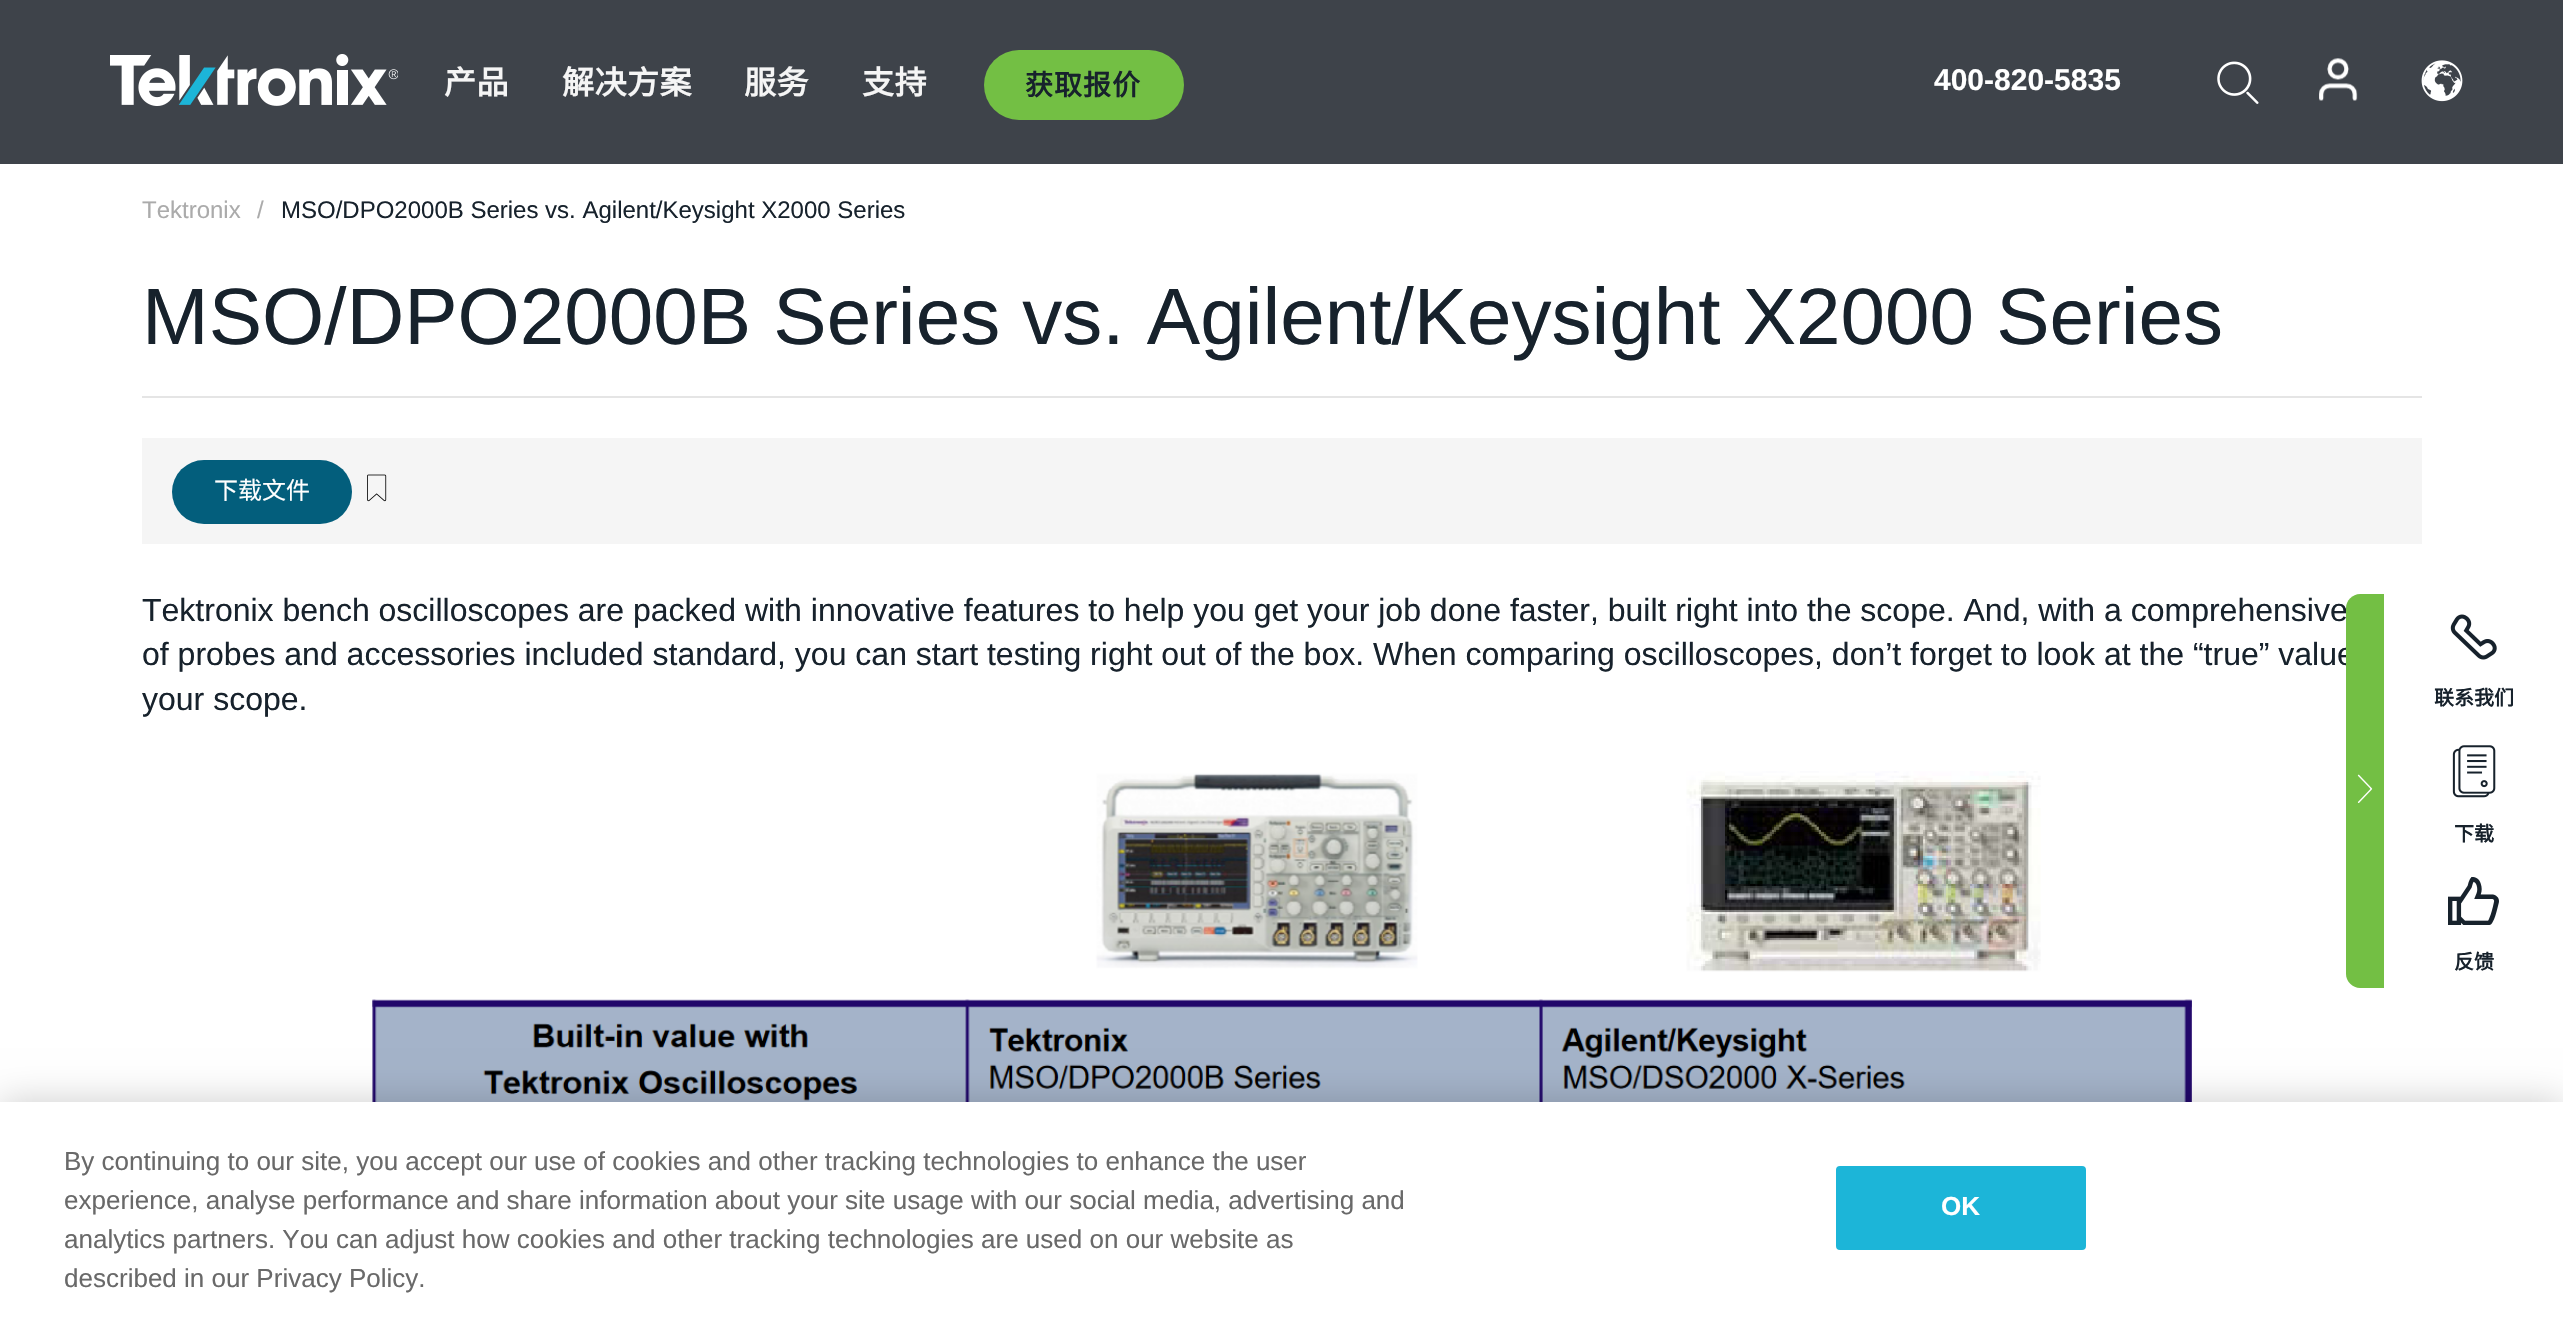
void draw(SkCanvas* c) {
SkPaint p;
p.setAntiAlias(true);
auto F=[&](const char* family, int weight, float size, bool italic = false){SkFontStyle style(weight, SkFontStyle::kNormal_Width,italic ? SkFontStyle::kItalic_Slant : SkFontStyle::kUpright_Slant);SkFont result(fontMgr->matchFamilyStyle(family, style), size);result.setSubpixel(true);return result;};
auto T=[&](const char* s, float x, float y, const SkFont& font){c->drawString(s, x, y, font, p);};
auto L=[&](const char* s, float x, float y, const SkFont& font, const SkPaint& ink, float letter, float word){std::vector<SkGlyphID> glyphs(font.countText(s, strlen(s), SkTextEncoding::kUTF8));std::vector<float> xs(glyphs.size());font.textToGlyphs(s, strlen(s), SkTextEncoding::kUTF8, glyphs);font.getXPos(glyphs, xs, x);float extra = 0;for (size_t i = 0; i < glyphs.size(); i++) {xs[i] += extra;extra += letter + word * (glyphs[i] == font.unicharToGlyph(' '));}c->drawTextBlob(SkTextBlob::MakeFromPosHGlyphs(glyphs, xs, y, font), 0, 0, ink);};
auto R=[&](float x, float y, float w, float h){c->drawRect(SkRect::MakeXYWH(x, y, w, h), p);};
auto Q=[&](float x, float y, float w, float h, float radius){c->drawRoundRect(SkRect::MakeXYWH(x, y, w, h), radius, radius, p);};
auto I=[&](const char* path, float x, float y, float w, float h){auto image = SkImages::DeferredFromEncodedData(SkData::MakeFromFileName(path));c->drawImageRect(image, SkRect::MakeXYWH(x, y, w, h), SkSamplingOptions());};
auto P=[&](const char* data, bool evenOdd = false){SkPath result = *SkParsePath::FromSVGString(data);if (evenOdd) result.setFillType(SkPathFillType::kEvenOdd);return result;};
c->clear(0xffffffff);
p.setColor(0xff3e434a);
R(0,0,2563,164);
I("1.png",110,54,288,52);
auto f1 = F("Noto Sans CJK SC",700,32);
p.setColor(0xfff5f5f5);
L("产品",444,94,f1,p,.5,0);
L("解决方案",562,94,f1,p,.5,0);
L("服务",744,94,f1,p,.5,0);
L("支持",862,94,f1,p,.5,0);
p.setColor(0xff73bf44);
Q(984,50,200,70,35);
auto f2 = F("Noto Sans CJK SC",700,28);
p.setColor(0xff17222c);
L("获取报价",1025,95,f2,p,1,0);
auto f3 = F("Liberation Sans",700,30);
p.setColor(0xffffffff);
T("400-820-5835",1934,90,f3);
I("2.png",2217,61,42,43);
I("3.png",2319,58,39,43);
I("4.png",2421,60,42,42);
auto f4 = F("Liberation Sans",400,24);
p.setColor(0xffababab);
T("Tektronix",142,218,f4);
T("/",257,218,f4);
p.setColor(0xff17222c);
T("MSO/DPO2000B Series vs. Agilent/Keysight X2000 Series",281,218,f4);
p.setColor(0xffe5e5e5);
R(142,396,2280,2);
auto f5 = F("Liberation Sans",400,80);
p.setColor(0xff17222c);
T("MSO/DPO2000B Series vs. Agilent/Keysight X2000 Series",142,344,f5);
p.setColor(0xfff5f5f5);
R(142,438,2280,106);
p.setColor(0xff035e7c);
Q(172,460,180,64,32);
auto f6 = F("Noto Sans CJK SC",400,24);
p.setColor(0xffffffff);
T("下载文件",214,499,f6);
I("5.png",367,474,20,28);
auto f7 = F("Liberation Sans",400,32);
p.setColor(0xff17222c);
T("Tektronix bench oscilloscopes are packed with innovative features to help you get your job done faster, built right into the scope. And, with a comprehensive",142,621,f7);
T("of probes and accessories included standard, you can start testing right out of the box. When comparing oscilloscopes, don’t forget to look at the “true” value",142,665,f7);
T("your scope.",142,710,f7);
I("6.png",372,771,1820,331);
p.setColor(0xffffffff);
c->drawPath(P("M2360 594h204v396h-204c-7.5 0-14-6.5-14-14v-368c0-7.5 6.5-14 14-14z"),p);
p.setColor(0xff73bf44);
c->drawPath(P("M2360 594h24v394h-24c-7.5 0-14-6.5-14-14v-366c0-7.5 6.5-14 14-14z"),p);
I("7.png",2357,774,16,29);
I("8.png",2450,614,47,46);
auto f8 = F("Noto Sans CJK SC",700,20);
p.setColor(0xff17222c);
T("联系我们",2434,705,f8);
I("9.png",2452,745,44,53);
T("下载",2454,841,f8);
I("10.png",2448,877,51,48);
T("反馈",2454,969,f8);
p.setColor(0x33000000);
p.setMaskFilter(SkMaskFilter::MakeBlur(kNormal_SkBlurStyle, 18));
c->drawRect(SkRect::MakeXYWH(0,1102,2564,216),p);
p.setMaskFilter(nullptr);
p.setColor(0xffffffff);
R(0,1102,2563,215);
auto f9 = F("Liberation Sans",400,26.02);
p.setColor(0xff696969);
T("By continuing to our site, you accept our use of cookies and other tracking technologies to enhance the user",64,1170,f9);
T("experience, analyse performance and share information about your site usage with our social media, advertising and",64,1209,f9);
T("analytics partners. You can adjust how cookies and other tracking technologies are used on our website as",64,1248,f9);
T("described in our Privacy Policy.",64,1287,f9);
p.setColor(0xff1cb5d8);
c->drawRoundRect(SkRect::MakeXYWH(1837,1167,248,82),3,3,p);
p.setStroke(true);
p.setStrokeWidth(2);
c->drawRoundRect(SkRect::MakeXYWH(1837,1167,248,82),3,3,p);
auto f10 = F("Liberation Sans",700,26.02);
p.setStroke(false);
p.setColor(0xffffffff);
T("OK",1941,1215,f10);
}
